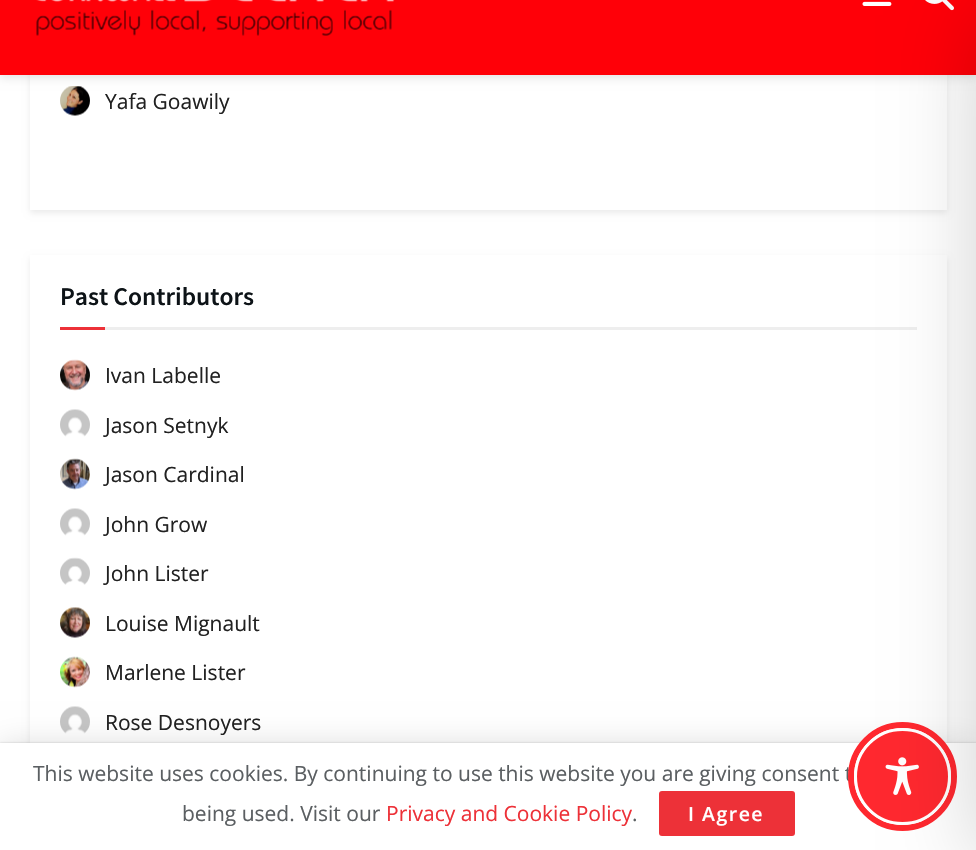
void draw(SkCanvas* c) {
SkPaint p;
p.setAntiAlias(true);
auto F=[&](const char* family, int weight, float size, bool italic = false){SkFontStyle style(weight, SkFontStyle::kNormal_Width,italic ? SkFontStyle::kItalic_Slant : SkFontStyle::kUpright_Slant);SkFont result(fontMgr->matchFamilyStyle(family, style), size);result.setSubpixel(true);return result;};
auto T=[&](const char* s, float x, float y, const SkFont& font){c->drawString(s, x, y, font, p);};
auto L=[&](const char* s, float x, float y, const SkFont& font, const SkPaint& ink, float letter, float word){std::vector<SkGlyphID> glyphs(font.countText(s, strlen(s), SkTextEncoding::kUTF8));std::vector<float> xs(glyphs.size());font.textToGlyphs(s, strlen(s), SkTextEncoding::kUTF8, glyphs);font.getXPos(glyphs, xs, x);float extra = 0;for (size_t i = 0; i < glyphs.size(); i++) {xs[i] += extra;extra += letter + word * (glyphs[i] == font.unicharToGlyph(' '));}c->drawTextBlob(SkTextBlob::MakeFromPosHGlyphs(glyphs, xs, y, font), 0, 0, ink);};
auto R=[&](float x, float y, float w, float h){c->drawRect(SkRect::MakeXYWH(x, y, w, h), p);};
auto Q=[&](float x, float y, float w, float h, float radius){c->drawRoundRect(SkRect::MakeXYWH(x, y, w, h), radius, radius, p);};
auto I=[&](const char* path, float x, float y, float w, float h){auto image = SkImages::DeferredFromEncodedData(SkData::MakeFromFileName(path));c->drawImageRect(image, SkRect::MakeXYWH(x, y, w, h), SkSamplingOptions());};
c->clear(0xffffffff);
p.setColor(0x14000000);
p.setMaskFilter(SkMaskFilter::MakeBlur(kNormal_SkBlurStyle, 3));
c->drawRect(SkRect::MakeXYWH(30,-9,917,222),p);
p.setMaskFilter(nullptr);
p.setColor(0xffffffff);
R(30,75,917,135);
I("4.png",60,86,30,30);
p.setColor(0x1a000000);
p.setMaskFilter(SkMaskFilter::MakeBlur(kNormal_SkBlurStyle, 4.5));
c->drawRect(SkRect::MakeXYWH(0,-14,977,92),p);
p.setMaskFilter(nullptr);
p.setColor(0xffff0008);
R(0,0,976,75);
I("1.png",36,0,359,36);
I("2.png",862,1,30,5);
I("3.png",925,0,29,11);
auto f1 = F("Open Sans",400,21);
p.setColor(0xff212121);
T("Yafa Goawily",105,109,f1);
p.setColor(0x14000000);
p.setMaskFilter(SkMaskFilter::MakeBlur(kNormal_SkBlurStyle, 3));
c->drawRect(SkRect::MakeXYWH(30,258,917,576),p);
p.setMaskFilter(nullptr);
p.setColor(0xffffffff);
R(30,255,917,488);
p.setColor(0xffeeeeee);
R(105,327,812,3);
auto f2 = F("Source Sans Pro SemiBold",600,25.5);
p.setColor(0xff0d1317);
T("Past Contributors",60,305,f2);
p.setColor(0xffed3138);
R(60,327,45,3);
I("5.png",60,359,30,32);
p.setColor(0xff212121);
T("Ivan Labelle",105,383,f1);
I("6.png",60,409,30,28);
T("Jason Setnyk",105,433,f1);
I("7.png",60,458,30,32);
T("Jason Cardinal",105,482,f1);
I("6.png",60,508,30,28);
T("John Grow",105,532,f1);
I("8.png",60,557,30,28);
T("John Lister",105,581,f1);
I("9.png",60,607,30,31);
T("Louise Mignault",105,631,f1);
I("10.png",60,656,30,32);
T("Marlene Lister",105,680,f1);
I("6.png",60,706,30,28);
T("Rose Desnoyers",105,730,f1);
p.setColor(0x26000000);
p.setMaskFilter(SkMaskFilter::MakeBlur(kNormal_SkBlurStyle, 15));
c->drawRect(SkRect::MakeXYWH(0,746,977,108),p);
p.setMaskFilter(nullptr);
p.setColor(0x33000000);
p.setMaskFilter(SkMaskFilter::MakeBlur(kNormal_SkBlurStyle, 1));
c->drawRect(SkRect::MakeXYWH(0,743,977,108),p);
p.setMaskFilter(nullptr);
p.setColor(0xffffffff);
R(0,743,976,107);
p.setColor(0xff5b5f62);
T("This website uses cookies. By continuing to use this website you are giving consent t",33,781,f1);
p.setStroke(true);
p.setStrokeWidth(6);
p.setColor(0xffff282f);
c->drawCircle(902.5,776.5,51.5,p);
p.setStroke(false);
c->drawCircle(902.5,776.5,47,p);
p.setStroke(true);
p.setStrokeWidth(3);
p.setColor(0xffffffff);
c->drawCircle(902.5,776.5,47,p);
I("11.png",885,757,34,38);
p.setStroke(false);
p.setColor(0x33000000);
p.setMaskFilter(SkMaskFilter::MakeBlur(kNormal_SkBlurStyle, 45));
c->drawRect(SkRect::MakeXYWH(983,15,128,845),p);
p.setMaskFilter(nullptr);
p.setColor(0xff5b5f62);
T("being used. Visit our",182,821,f1);
p.setColor(0xffed3138);
T("Privacy and Cookie Policy",386,821,f1);
p.setColor(0xff5b5f62);
T(".",632,821,f1);
p.setColor(0xffed3138);
Q(659,791,136,45,3);
auto f3 = F("Open Sans",600,19.5);
p.setColor(0xffffffff);
L("I Agree",688,821,f3,p,1.5,0);
}
